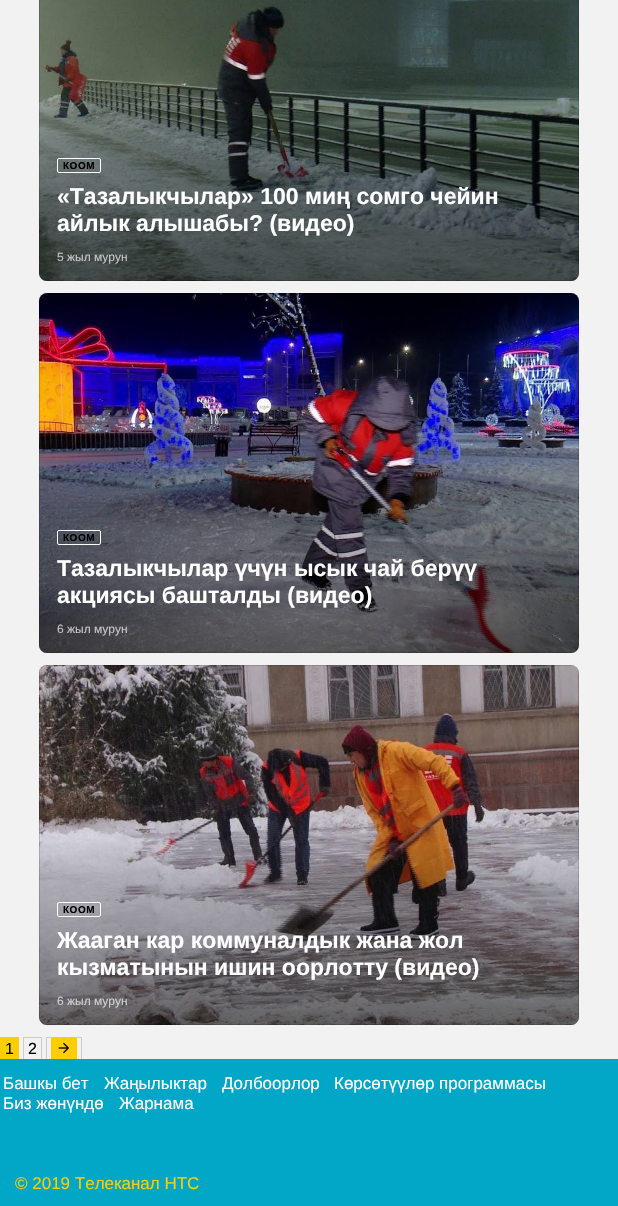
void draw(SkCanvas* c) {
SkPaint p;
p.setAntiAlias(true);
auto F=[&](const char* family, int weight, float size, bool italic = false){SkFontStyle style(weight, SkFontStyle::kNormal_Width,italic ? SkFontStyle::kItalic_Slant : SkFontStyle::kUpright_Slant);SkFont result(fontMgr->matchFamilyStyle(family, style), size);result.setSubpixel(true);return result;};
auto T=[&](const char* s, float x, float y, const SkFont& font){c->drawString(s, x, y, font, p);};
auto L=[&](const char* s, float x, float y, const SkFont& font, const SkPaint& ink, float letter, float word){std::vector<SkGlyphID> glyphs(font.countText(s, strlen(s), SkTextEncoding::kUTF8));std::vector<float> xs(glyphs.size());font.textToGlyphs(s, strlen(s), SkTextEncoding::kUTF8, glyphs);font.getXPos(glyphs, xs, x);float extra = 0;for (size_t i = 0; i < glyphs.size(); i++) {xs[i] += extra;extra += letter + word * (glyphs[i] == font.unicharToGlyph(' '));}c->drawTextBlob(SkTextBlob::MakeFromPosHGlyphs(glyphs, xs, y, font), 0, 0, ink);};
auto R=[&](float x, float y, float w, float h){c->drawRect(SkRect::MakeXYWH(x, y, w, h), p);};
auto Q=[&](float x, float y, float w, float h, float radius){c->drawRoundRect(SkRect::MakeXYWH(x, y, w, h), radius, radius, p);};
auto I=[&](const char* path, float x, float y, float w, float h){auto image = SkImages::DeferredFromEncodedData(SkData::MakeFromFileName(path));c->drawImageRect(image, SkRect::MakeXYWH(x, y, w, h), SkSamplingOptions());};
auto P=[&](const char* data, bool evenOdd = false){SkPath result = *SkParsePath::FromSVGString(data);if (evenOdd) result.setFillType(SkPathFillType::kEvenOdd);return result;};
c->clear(0xfff2f2f2);
p.setColor(0xffffffff);
Q(39,-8,540,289,8);
I("1.png",39,0,540,281);
p.setColor(0x26000000);
c->drawPath(P("M39-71v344l1 4v-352zm8-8l-4 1h532l-4-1zm532 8l-1-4v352l1-4zm-8 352l4-1h-532l4 1z",true),p);
{
const SkColor colors[] = {0x00000000,0x0d000000,0x33000000,0x80000000};
const float stops[] = {0,.05,.25,1};
const SkPoint ends[] = {{309,97}, {309,281}};
p.setShader(SkGradientShader::MakeLinear(ends, colors, stops, 4, SkTileMode::kClamp));
p.setAlpha(255);
}
c->drawPath(P("M41 97h536c1 0 2 1 2 2v174c0 4.5-3.5 8-8 8h-524c-4.5 0-8-3.5-8-8v-174c0-1 1-2 2-2z"),p);
p.setStroke(true);
p.setStrokeWidth(1);
p.setShader(nullptr);
p.setColor(0xffffffff);
c->drawRoundRect(SkRect::MakeXYWH(57.5,158.5,43,14),1.5,1.5,p);
auto f1 = F("Liberation Sans",700,10);
p.setStroke(false);
p.setColor(0xff000000);
L("КООМ",63,169,f1,p,.5,0);
auto f2 = F("Liberation Sans",700,23);
p.setColor(0xffffffff);
T("«Тазалыкчылар» 100 миң сомго чейин",57,204,f2);
T("айлык алышабы? (видео)",57,231,f2);
auto f3 = F("Liberation Sans",400,12);
p.setColor(0xffc5c8c7);
T("5 жыл мурун",57,261,f3);
p.setColor(0xffffffff);
Q(39,293,540,360,8);
I("2.png",39,293,540,360);
p.setColor(0x26000000);
c->drawPath(P("M39 301v344l1 4v-352zm8-8l-4 1h532l-4-1zm532 8l-1-4v352l1-4zm-8 352l4-1h-532l4 1z",true),p);
{
const SkColor colors[] = {0x00000000,0x0d000000,0x33000000,0x80000000};
const float stops[] = {0,.05,.25,1};
const SkPoint ends[] = {{309,469}, {309,653}};
p.setShader(SkGradientShader::MakeLinear(ends, colors, stops, 4, SkTileMode::kClamp));
p.setAlpha(255);
}
c->drawPath(P("M41 469h536c1 0 2 1 2 2v174c0 4.5-3.5 8-8 8h-524c-4.5 0-8-3.5-8-8v-174c0-1 1-2 2-2z"),p);
p.setStroke(true);
p.setShader(nullptr);
p.setColor(0xffffffff);
c->drawRoundRect(SkRect::MakeXYWH(57.5,530.5,43,14),1.5,1.5,p);
p.setStroke(false);
p.setColor(0xff000000);
L("КООМ",63,541,f1,p,.5,0);
p.setColor(0xffffffff);
T("Тазалыкчылар үчүн ысык чай берүү",57,576,f2);
T("акциясы башталды (видео)",57,603,f2);
p.setColor(0xffc5c8c7);
T("6 жыл мурун",57,633,f3);
p.setColor(0xffffffff);
Q(39,665,540,360,8);
I("3.png",39,665,540,360);
p.setColor(0x26000000);
c->drawPath(P("M39 673v344l1 4v-352zm8-8l-4 1h532l-4-1zm532 8l-1-4v352l1-4zm-8 352l4-1h-532l4 1z",true),p);
{
const SkColor colors[] = {0x00000000,0x0d000000,0x33000000,0x80000000};
const float stops[] = {0,.05,.25,1};
const SkPoint ends[] = {{309,841}, {309,1025}};
p.setShader(SkGradientShader::MakeLinear(ends, colors, stops, 4, SkTileMode::kClamp));
p.setAlpha(255);
}
c->drawPath(P("M41 841h536c1 0 2 1 2 2v174c0 4.5-3.5 8-8 8h-524c-4.5 0-8-3.5-8-8v-174c0-1 1-2 2-2z"),p);
p.setStroke(true);
p.setShader(nullptr);
p.setColor(0xffffffff);
c->drawRoundRect(SkRect::MakeXYWH(57.5,902.5,43,14),1.5,1.5,p);
p.setStroke(false);
p.setColor(0xff000000);
L("КООМ",63,913,f1,p,.5,0);
p.setColor(0xffffffff);
T("Жааган кар коммуналдык жана жол",57,948,f2);
T("кызматынын ишин оорлотту (видео)",57,975,f2);
p.setColor(0xffd2d1d2);
T("6 жыл мурун",57,1005,f3);
p.setColor(0xffffce01);
R(5,1037,14,22);
auto f4 = F("Liberation Sans",400,16);
p.setColor(0xff000000);
T("1",5,1054,f4);
p.setColor(0xffffce01);
R(0,1037,5,23);
p.setColor(0xff000000);
T("2",28,1054,f4);
p.setColor(0xffcccccc);
R(23,1037,19,1);
R(23,1037,1,23);
R(41,1037,1,23);
p.setStroke(true);
c->drawRect(SkRect::MakeXYWH(46.5,1037.5,35,22),p);
p.setStroke(false);
p.setColor(0xffffce01);
R(51,1037,26,22);
I("4.png",58,1042,12,12);
p.setColor(0xff02a6c6);
R(0,1059,618,147);
auto f5 = F("Liberation Sans",400,17);
p.setColor(0xffffffff);
T("Башкы бет",3,1089,f5);
T("Жаңылыктар",104,1089,f5);
T("Долбоорлор",222,1089,f5);
T("Көрсөтүүлөр программасы",334,1089,f5);
T("Биз жөнүндө",3,1109,f5);
T("Жарнама",119,1109,f5);
p.setColor(0xffffce01);
T("© 2019 Телеканал НТС",15,1189,f5);
}
